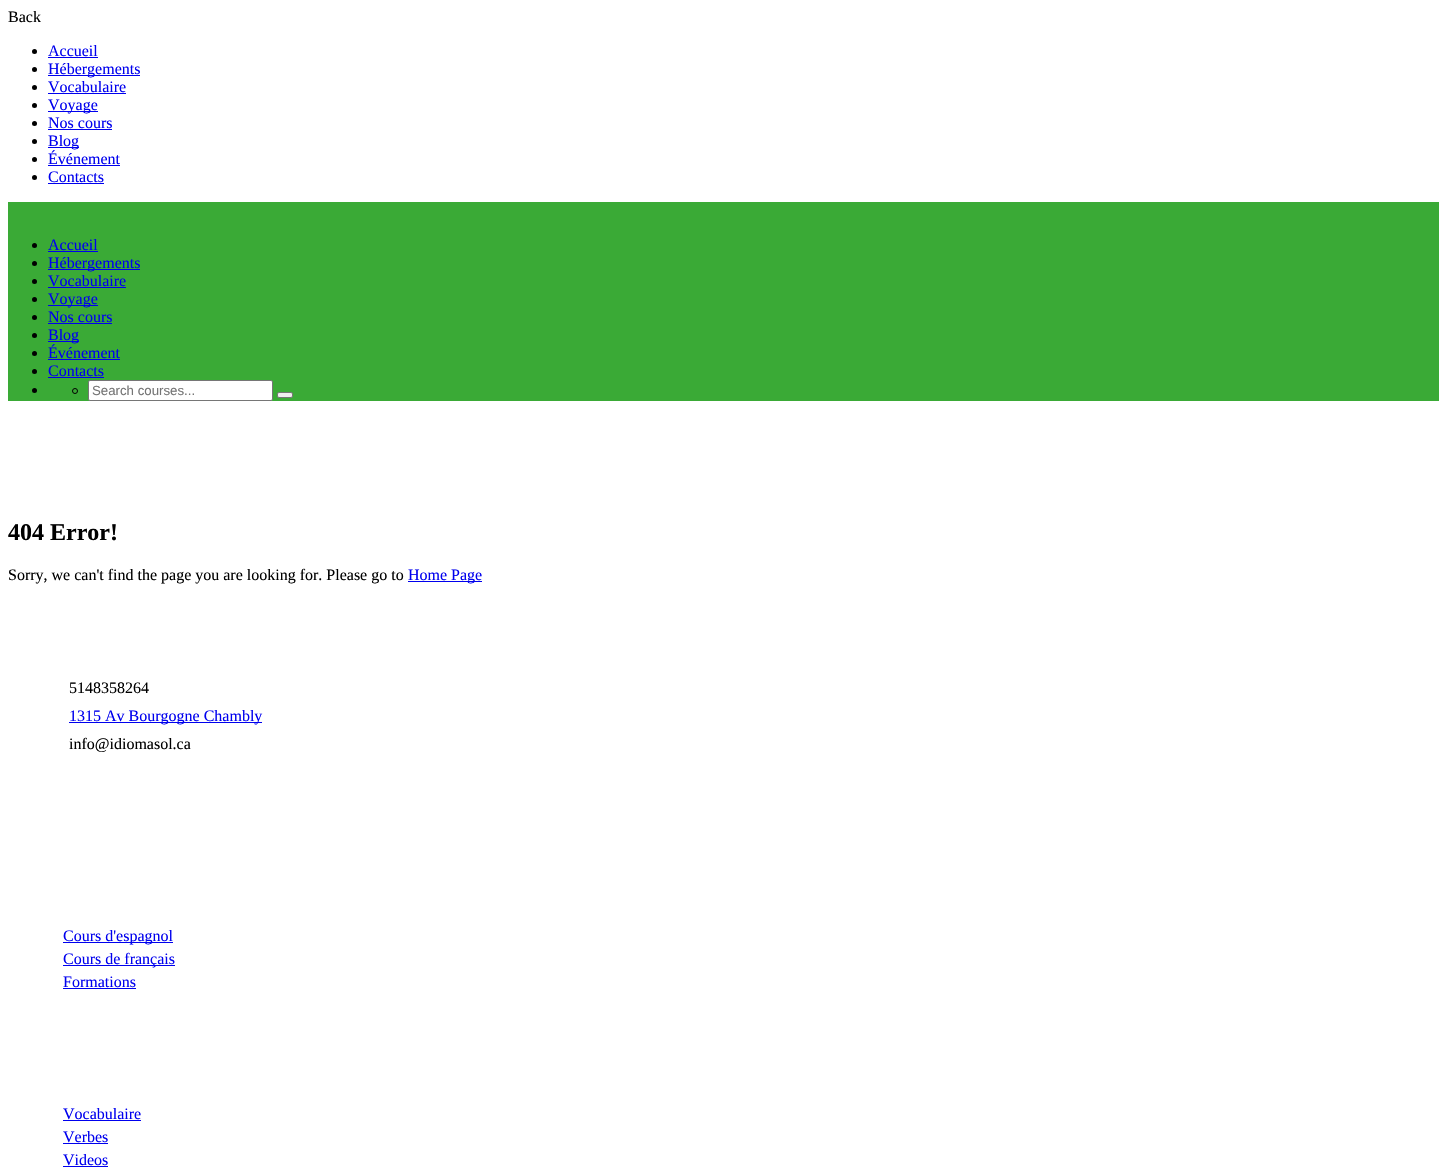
void draw(SkCanvas* c) {
SkPaint p;
p.setAntiAlias(true);
auto F=[&](const char* family, int weight, float size, bool italic = false){SkFontStyle style(weight, SkFontStyle::kNormal_Width,italic ? SkFontStyle::kItalic_Slant : SkFontStyle::kUpright_Slant);SkFont result(fontMgr->matchFamilyStyle(family, style), size);result.setSubpixel(true);return result;};
auto T=[&](const char* s, float x, float y, const SkFont& font){c->drawString(s, x, y, font, p);};
auto R=[&](float x, float y, float w, float h){c->drawRect(SkRect::MakeXYWH(x, y, w, h), p);};
c->clear(0xffffffff);
auto f1 = F("Liberation Serif",400,16);
p.setColor(0xff000000);
T("Back",8,22,f1);
c->drawCircle(34.5,51.5,2.5,p);
p.setColor(0xff0000ee);
T("Accueil",48,56,f1);
R(48,57,50,1);
p.setColor(0xff000000);
c->drawCircle(34.5,69.5,2.5,p);
p.setColor(0xff0000ee);
R(48,75,92,1);
T("Hébergements",48,74,f1);
p.setColor(0xff000000);
c->drawCircle(34.5,87.5,2.5,p);
p.setColor(0xff0000ee);
T("Vocabulaire",48,92,f1);
R(48,93,78,1);
p.setColor(0xff000000);
c->drawCircle(34.5,105.5,2.5,p);
p.setColor(0xff0000ee);
R(48,111,50,1);
T("Voyage",48,110,f1);
p.setColor(0xff000000);
c->drawCircle(34.5,123.5,2.5,p);
p.setColor(0xff0000ee);
T("Nos cours",48,128,f1);
R(48,129,64,1);
p.setColor(0xff000000);
c->drawCircle(34.5,141.5,2.5,p);
p.setColor(0xff0000ee);
R(48,147,31,1);
T("Blog",48,146,f1);
p.setColor(0xff000000);
c->drawCircle(34.5,159.5,2.5,p);
p.setColor(0xff0000ee);
T("Événement",48,164,f1);
R(48,165,72,1);
p.setColor(0xff000000);
c->drawCircle(34.5,177.5,2.5,p);
p.setColor(0xff0000ee);
T("Contacts",48,182,f1);
R(48,183,56,1);
p.setColor(0xff3aaa36);
R(8,202,1431,199);
p.setColor(0xff000000);
c->drawCircle(34.5,245.5,2.5,p);
p.setColor(0xff0000ee);
T("Accueil",48,250,f1);
R(48,251,50,1);
p.setColor(0xff000000);
c->drawCircle(34.5,263.5,2.5,p);
p.setColor(0xff0000ee);
R(48,269,92,1);
T("Hébergements",48,268,f1);
p.setColor(0xff000000);
c->drawCircle(34.5,281.5,2.5,p);
p.setColor(0xff0000ee);
T("Vocabulaire",48,286,f1);
R(48,287,78,1);
p.setColor(0xff000000);
c->drawCircle(34.5,299.5,2.5,p);
p.setColor(0xff0000ee);
R(48,305,50,1);
T("Voyage",48,304,f1);
p.setColor(0xff000000);
c->drawCircle(34.5,317.5,2.5,p);
p.setColor(0xff0000ee);
T("Nos cours",48,322,f1);
R(48,323,64,1);
p.setColor(0xff000000);
c->drawCircle(34.5,335.5,2.5,p);
p.setColor(0xff0000ee);
R(48,341,31,1);
T("Blog",48,340,f1);
p.setColor(0xff000000);
c->drawCircle(34.5,353.5,2.5,p);
p.setColor(0xff0000ee);
T("Événement",48,358,f1);
R(48,359,72,1);
p.setColor(0xff000000);
c->drawCircle(34.5,371.5,2.5,p);
p.setColor(0xff0000ee);
T("Contacts",48,376,f1);
R(48,377,56,1);
p.setColor(0xff000000);
c->drawCircle(34.5,390.5,2.5,p);
p.setStroke(true);
p.setStrokeWidth(1);
c->drawCircle(75,391,2.5,p);
p.setStroke(false);
p.setColor(0xffffffff);
c->drawRoundRect(SkRect::MakeXYWH(88.5,380.5,184,20),1.5,1.5,p);
p.setStroke(true);
p.setColor(0xff767676);
c->drawRoundRect(SkRect::MakeXYWH(88.5,380.5,184,20),1.5,1.5,p);
auto f2 = F("Liberation Sans",400,13.25);
p.setStroke(false);
p.setColor(0xff757575);
T("Search courses...",92,395,f2);
p.setColor(0xffefefef);
c->drawRoundRect(SkRect::MakeXYWH(277.5,392.5,15,5),1.5,1.5,p);
p.setStroke(true);
p.setColor(0xff767676);
c->drawRoundRect(SkRect::MakeXYWH(277.5,392.5,15,5),1.5,1.5,p);
auto f3 = F("Liberation Serif",700,24);
p.setStroke(false);
p.setColor(0xff000000);
T("404 Error!",8,540,f3);
T("Sorry, we can't find the page you are looking for. Please go to",8,580,f1);
p.setColor(0xff0000ee);
R(408,581,74,1);
T("Home Page",408,580,f1);
p.setColor(0xff000000);
T("5148358264",69,693,f1);
p.setColor(0xff0000ee);
R(69,722,193,1);
T("1315 Av Bourgogne Chambly",69,721,f1);
p.setColor(0xff000000);
T("info@idiomasol.ca",69,749,f1);
p.setColor(0xff0000ee);
R(63,942,110,1);
T("Cours d'espagnol",63,941,f1);
R(63,965,112,1);
T("Cours de français",63,964,f1);
T("Formations",63,987,f1);
R(63,988,73,1);
T("Vocabulaire",63,1119,f1);
R(63,1120,78,1);
T("Verbes",63,1142,f1);
R(63,1143,45,1);
T("Videos",63,1165,f1);
R(63,1166,45,1);
}
